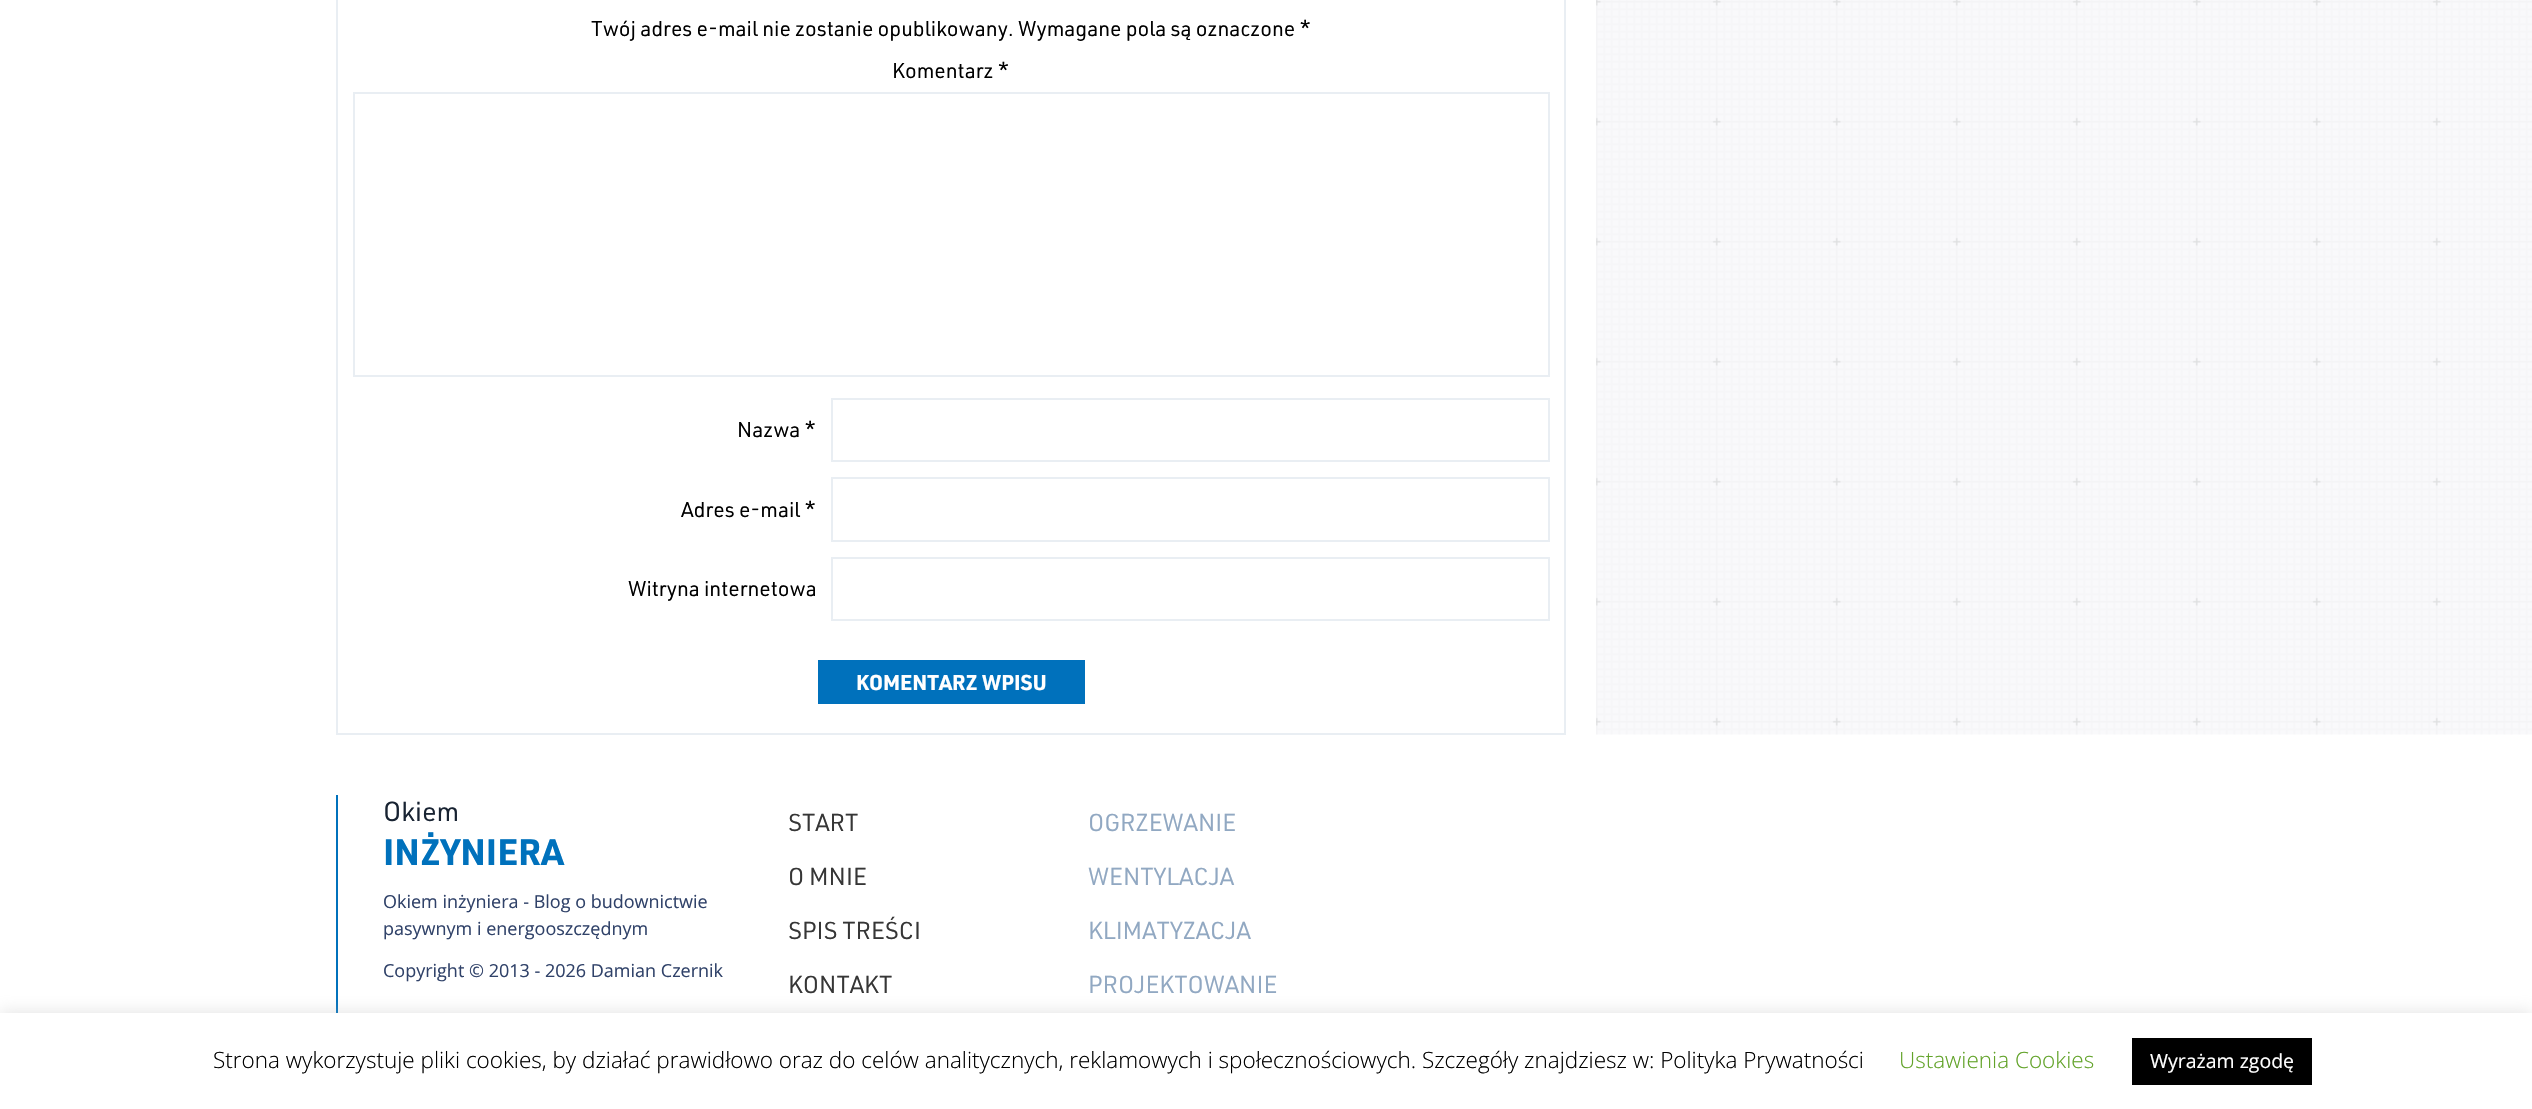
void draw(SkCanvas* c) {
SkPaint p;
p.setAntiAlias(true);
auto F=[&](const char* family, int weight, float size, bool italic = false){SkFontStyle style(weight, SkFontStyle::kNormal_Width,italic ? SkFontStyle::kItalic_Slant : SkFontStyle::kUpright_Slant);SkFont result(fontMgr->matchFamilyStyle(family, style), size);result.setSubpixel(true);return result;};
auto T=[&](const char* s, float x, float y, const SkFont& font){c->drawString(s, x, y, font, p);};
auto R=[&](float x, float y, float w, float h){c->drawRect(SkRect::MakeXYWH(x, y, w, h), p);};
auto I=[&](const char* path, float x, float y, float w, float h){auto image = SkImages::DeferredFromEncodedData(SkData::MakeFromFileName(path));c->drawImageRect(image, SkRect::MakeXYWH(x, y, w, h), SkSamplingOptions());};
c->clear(0xffffffff);
p.setStroke(true);
p.setStrokeWidth(2);
p.setColor(0xffe9eef3);
c->drawRect(SkRect::MakeXYWH(337,-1,1228,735),p);
auto f1 = F("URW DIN",400,21);
p.setStroke(false);
p.setColor(0xff000000);
T("Twój adres e-mail nie zostanie opublikowany. Wymagane pola są oznaczone *",591,36,f1);
T("Komentarz *",892,78,f1);
p.setStroke(true);
p.setColor(0xffe9eef3);
c->drawRect(SkRect::MakeXYWH(354,93,1195,283),p);
p.setStroke(false);
p.setColor(0xff000000);
T("Nazwa *",737,437,f1);
p.setStroke(true);
p.setColor(0xffe9eef3);
c->drawRect(SkRect::MakeXYWH(832,399,717,62),p);
p.setStroke(false);
p.setColor(0xff000000);
T("Adres e-mail *",681,517,f1);
p.setStroke(true);
p.setColor(0xffe9eef3);
c->drawRect(SkRect::MakeXYWH(832,478,717,63),p);
p.setStroke(false);
p.setColor(0xff000000);
T("Witryna internetowa",628,596,f1);
p.setStroke(true);
p.setColor(0xffe9eef3);
c->drawRect(SkRect::MakeXYWH(832,558,717,62),p);
p.setStroke(false);
p.setColor(0xff0071bc);
R(818,660,267,44);
auto f2 = F("URW DIN",700,21);
p.setColor(0xffffffff);
T("KOMENTARZ WPISU",856,690,f2);
I("1.png",1596,0,936,735);
p.setColor(0xff0071bc);
R(336,795,2,218);
auto f3 = F("URW DIN",400,27);
p.setColor(0xff182332);
T("Okiem",383,821,f3);
auto f4 = F("URW DIN",700,36);
p.setColor(0xff0071bc);
T("INŻYNIERA",383,865,f4);
auto f5 = F("Open Sans",400,18);
p.setColor(0xff304269);
T("Okiem inżyniera - Blog o budownictwie",383,908,f5);
T("pasywnym i energooszczędnym",383,935,f5);
T("Copyright © 2013 - 2026 Damian Czernik",383,977,f5);
auto f6 = F("URW DIN",400,24);
p.setColor(0xff363636);
T("START",788,831,f6);
T("O MNIE",788,885,f6);
T("SPIS TREŚCI",788,939,f6);
T("KONTAKT",788,993,f6);
p.setColor(0xff91a8c2);
T("OGRZEWANIE",1088,831,f6);
T("WENTYLACJA",1088,885,f6);
T("KLIMATYZACJA",1088,939,f6);
T("PROJEKTOWANIE",1088,993,f6);
p.setColor(0x4dacabab);
p.setMaskFilter(SkMaskFilter::MakeBlur(kNormal_SkBlurStyle, 7.5));
c->drawRect(SkRect::MakeXYWH(0,1011,2532,98),p);
p.setMaskFilter(nullptr);
p.setColor(0xffffffff);
R(0,1013,2532,96);
auto f7 = F("Open Sans",300,22.5);
p.setColor(0xff000000);
T("Strona wykorzystuje pliki cookies, by działać prawidłowo oraz do celów analitycznych, reklamowych i społecznościowych. Szczegóły znajdziesz w: Polityka Prywatności",213,1068,f7);
p.setColor(0xff62a329);
T("Ustawienia Cookies",1899,1068,f7);
p.setColor(0xff000000);
R(2132,1038,180,47);
auto f8 = F("Open Sans",400,19.5);
p.setColor(0xffffffff);
T("Wyrażam zgodę",2150,1068,f8);
}
